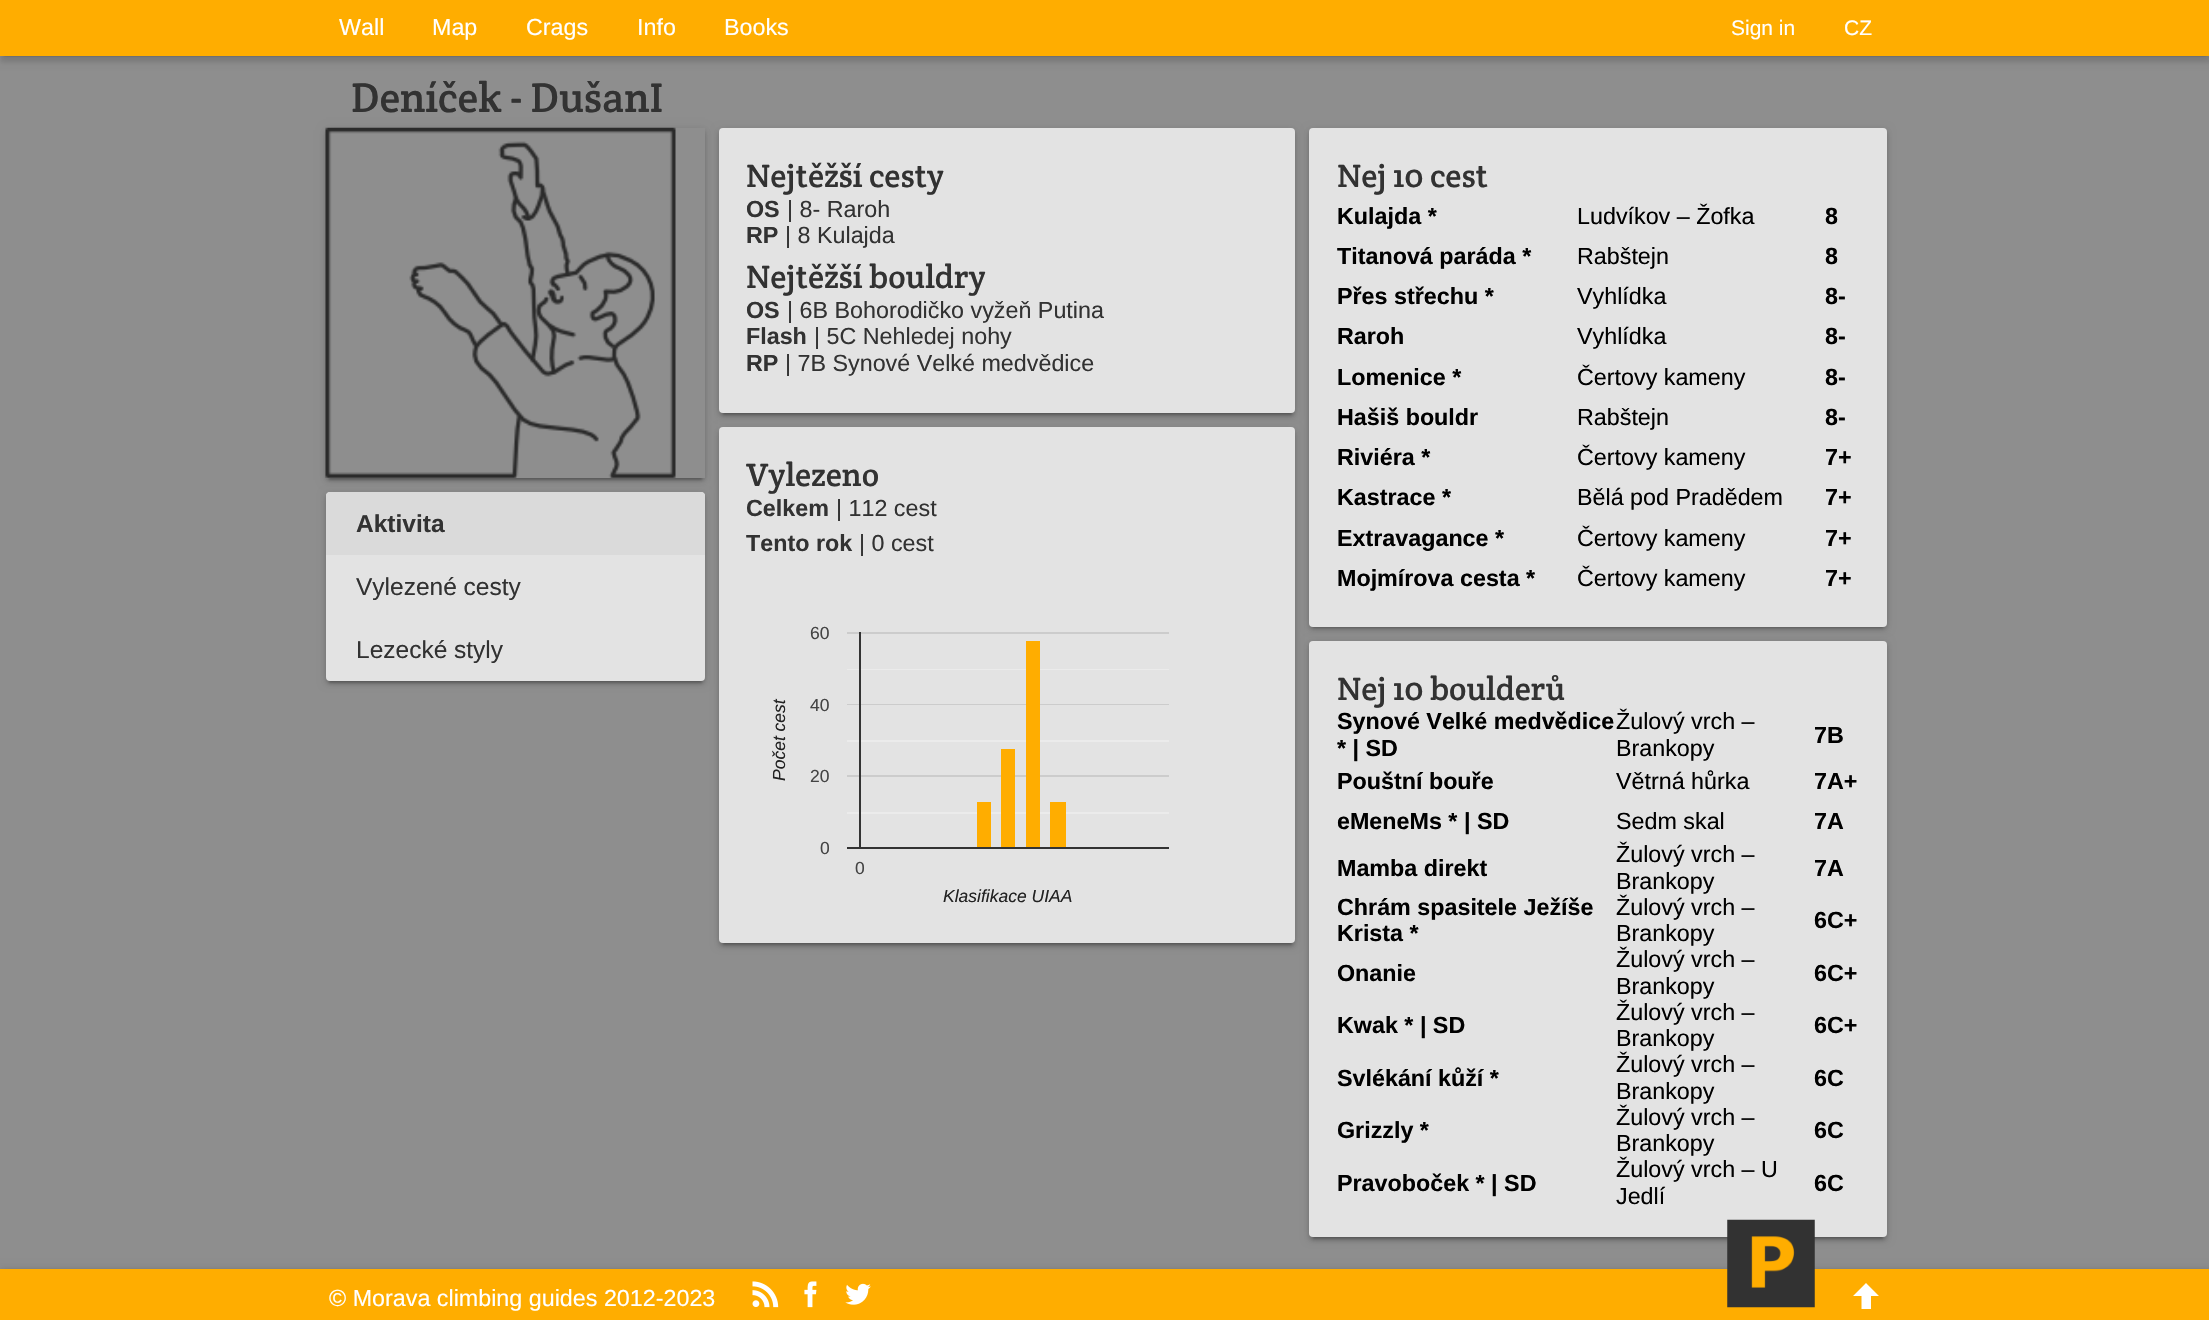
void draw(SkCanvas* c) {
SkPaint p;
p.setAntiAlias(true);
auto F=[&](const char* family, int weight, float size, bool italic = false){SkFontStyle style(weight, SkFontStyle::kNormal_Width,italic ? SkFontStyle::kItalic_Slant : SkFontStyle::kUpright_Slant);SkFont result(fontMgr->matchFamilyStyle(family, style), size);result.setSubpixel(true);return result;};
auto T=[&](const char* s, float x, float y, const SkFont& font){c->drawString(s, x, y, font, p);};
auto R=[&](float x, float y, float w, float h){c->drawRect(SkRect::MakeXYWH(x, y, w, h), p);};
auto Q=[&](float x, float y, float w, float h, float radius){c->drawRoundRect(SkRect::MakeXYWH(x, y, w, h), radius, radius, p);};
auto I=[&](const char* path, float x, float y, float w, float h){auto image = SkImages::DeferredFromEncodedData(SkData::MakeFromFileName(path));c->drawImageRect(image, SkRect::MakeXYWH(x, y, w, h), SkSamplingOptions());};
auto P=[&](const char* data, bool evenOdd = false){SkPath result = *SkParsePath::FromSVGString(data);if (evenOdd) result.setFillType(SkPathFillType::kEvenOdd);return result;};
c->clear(0xff8e8e8e);
p.setColor(0x1f000000);
p.setMaskFilter(SkMaskFilter::MakeBlur(kNormal_SkBlurStyle, 4.5));
c->drawRect(SkRect::MakeXYWH(0,2,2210,56),p);
p.setMaskFilter(nullptr);
p.setColor(0x33000000);
p.setMaskFilter(SkMaskFilter::MakeBlur(kNormal_SkBlurStyle, 1));
c->drawRect(SkRect::MakeXYWH(4,7,2203,49),p);
p.setMaskFilter(nullptr);
p.setColor(0x14000000);
p.setMaskFilter(SkMaskFilter::MakeBlur(kNormal_SkBlurStyle, 2));
c->drawRect(SkRect::MakeXYWH(0,0,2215,63),p);
p.setMaskFilter(nullptr);
p.setColor(0xffffad00);
R(0,0,2209,56);
auto f1 = F("Liberation Sans",400,23.3);
p.setColor(0xffffffff);
T("Wall",339,35,f1);
T("Map",432,35,f1);
T("Crags",526,35,f1);
T("Info",637,35,f1);
T("Books",724,35,f1);
auto f2 = F("Liberation Sans",400,21);
T("Sign in",1731,35,f2);
T("CZ",1844,35,f2);
auto f3 = F("Crete Round",400,42);
p.setColor(0xff323232);
T("Deníček - DušanI",351,112,f3);
c->save();
c->clipPath(P("M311 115h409v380h-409zm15 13h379v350h-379z",true),true);
p.setColor(0x1f000000);
p.setMaskFilter(SkMaskFilter::MakeBlur(kNormal_SkBlurStyle, 4.5));
c->drawRect(SkRect::MakeXYWH(326,130,379,350),p);
p.setMaskFilter(nullptr);
c->restore();
c->save();
c->clipPath(P("M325 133h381v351h-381zm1-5h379v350h-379z",true),true);
p.setColor(0x33000000);
p.setMaskFilter(SkMaskFilter::MakeBlur(kNormal_SkBlurStyle, 1));
c->drawRect(SkRect::MakeXYWH(329,137,373,343),p);
p.setMaskFilter(nullptr);
c->restore();
c->save();
c->clipPath(P("M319 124h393v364h-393zm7 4h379v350h-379z",true),true);
p.setColor(0x24000000);
p.setMaskFilter(SkMaskFilter::MakeBlur(kNormal_SkBlurStyle, 2));
c->drawRect(SkRect::MakeXYWH(326,131,379,350),p);
p.setMaskFilter(nullptr);
c->restore();
I("1.png",325,127,351,351);
p.setColor(0x1f000000);
p.setMaskFilter(SkMaskFilter::MakeBlur(kNormal_SkBlurStyle, 4.5));
c->drawRoundRect(SkRect::MakeXYWH(326,494,379,189),4,4,p);
p.setMaskFilter(nullptr);
p.setColor(0x33000000);
p.setMaskFilter(SkMaskFilter::MakeBlur(kNormal_SkBlurStyle, 1));
c->drawRect(SkRect::MakeXYWH(329,501,373,182),p);
p.setMaskFilter(nullptr);
p.setColor(0x24000000);
p.setMaskFilter(SkMaskFilter::MakeBlur(kNormal_SkBlurStyle, 2));
c->drawRoundRect(SkRect::MakeXYWH(326,495,379,189),4,4,p);
p.setMaskFilter(nullptr);
p.setColor(0xffe3e3e3);
Q(326,492,379,189,4);
p.setColor(0xffdadada);
c->drawPath(P("M330 492h371c2 0 4 2 4 4v59h-379v-59c0-2 2-4 4-4z"),p);
auto f4 = F("Liberation Sans",700,24.5);
p.setColor(0xff323232);
T("Aktivita",356,532,f4);
auto f5 = F("Liberation Sans",400,24.5);
T("Vylezené cesty",356,595,f5);
T("Lezecké styly",356,658,f5);
p.setColor(0x1f000000);
p.setMaskFilter(SkMaskFilter::MakeBlur(kNormal_SkBlurStyle, 4.5));
c->drawRoundRect(SkRect::MakeXYWH(719,130,576,285),4,4,p);
p.setMaskFilter(nullptr);
p.setColor(0x33000000);
p.setMaskFilter(SkMaskFilter::MakeBlur(kNormal_SkBlurStyle, 1));
c->drawRect(SkRect::MakeXYWH(723,137,569,278),p);
p.setMaskFilter(nullptr);
p.setColor(0x24000000);
p.setMaskFilter(SkMaskFilter::MakeBlur(kNormal_SkBlurStyle, 2));
c->drawRoundRect(SkRect::MakeXYWH(719,131,576,286),4,4,p);
p.setMaskFilter(nullptr);
p.setColor(0xffe3e3e3);
Q(719,128,576,285,4);
auto f6 = F("Crete Round",400,32.75);
p.setColor(0xff323232);
T("Nejtěžší cesty",746,187,f6);
auto f7 = F("Liberation Sans",700,23.3);
T("OS",746,217,f7);
T("| 8- Raroh",787,217,f1);
T("RP",746,243,f7);
T("| 8 Kulajda",785,243,f1);
T("Nejtěžší bouldry",746,288,f6);
T("OS",746,318,f7);
T("| 6B Bohorodičko vyžeň Putina",787,318,f1);
T("Flash",746,344,f7);
T("| 5C Nehledej nohy",814,344,f1);
T("RP",746,371,f7);
T("| 7B Synové Velké medvědice",785,371,f1);
p.setColor(0x1f000000);
p.setMaskFilter(SkMaskFilter::MakeBlur(kNormal_SkBlurStyle, 4.5));
c->drawRoundRect(SkRect::MakeXYWH(719,429,576,516),4,4,p);
p.setMaskFilter(nullptr);
p.setColor(0x33000000);
p.setMaskFilter(SkMaskFilter::MakeBlur(kNormal_SkBlurStyle, 1));
c->drawRect(SkRect::MakeXYWH(723,436,569,509),p);
p.setMaskFilter(nullptr);
p.setColor(0x24000000);
p.setMaskFilter(SkMaskFilter::MakeBlur(kNormal_SkBlurStyle, 2));
c->drawRoundRect(SkRect::MakeXYWH(719,431,576,516),4,4,p);
p.setMaskFilter(nullptr);
p.setColor(0xffe3e3e3);
Q(719,427,576,516,4);
p.setColor(0xff323232);
T("Vylezeno",746,486,f6);
T("Celkem",746,516,f7);
T("| 112 cest",836,516,f1);
T("Tento rok",746,551,f7);
T("| 0 cest",859,551,f1);
auto f8 = F("Liberation Sans",400,17.5,true);
p.setColor(0xff222222);
c->save();
c->rotate(-90,785,781);
T("Počet cest",785,781,f8);
c->restore();
auto f9 = F("Liberation Sans",400,17.5);
p.setColor(0xff444444);
T("60",810,639,f9);
I("2.png",847,632,322,217);
T("40",810,711,f9);
T("20",810,782,f9);
T("0",820,854,f9);
T("0",855,874,f9);
p.setColor(0xff222222);
T("Klasifikace UIAA",943,902,f8);
p.setColor(0x1f000000);
p.setMaskFilter(SkMaskFilter::MakeBlur(kNormal_SkBlurStyle, 4.5));
c->drawRoundRect(SkRect::MakeXYWH(1309,130,578,498),4,4,p);
p.setMaskFilter(nullptr);
p.setColor(0x33000000);
p.setMaskFilter(SkMaskFilter::MakeBlur(kNormal_SkBlurStyle, 1));
c->drawRect(SkRect::MakeXYWH(1313,137,570,491),p);
p.setMaskFilter(nullptr);
p.setColor(0x24000000);
p.setMaskFilter(SkMaskFilter::MakeBlur(kNormal_SkBlurStyle, 2));
c->drawRoundRect(SkRect::MakeXYWH(1309,131,578,499),4,4,p);
p.setMaskFilter(nullptr);
p.setColor(0xffe3e3e3);
Q(1309,128,578,499,4);
p.setColor(0xff323232);
T("Nej 10 cest",1337,187,f6);
p.setColor(0xff000000);
T("Kulajda *",1337,224,f7);
T("Ludvíkov – Žofka",1577,224,f1);
T("8",1825,224,f7);
T("Titanová paráda *",1337,264,f7);
T("Rabštejn",1577,264,f1);
T("8",1825,264,f7);
T("Přes střechu *",1337,304,f7);
T("Vyhlídka",1577,304,f1);
T("8-",1825,304,f7);
T("Raroh",1337,344,f7);
T("Vyhlídka",1577,344,f1);
T("8-",1825,344,f7);
T("Lomenice *",1337,385,f7);
T("Čertovy kameny",1577,385,f1);
T("8-",1825,385,f7);
T("Hašiš bouldr",1337,425,f7);
T("Rabštejn",1577,425,f1);
T("8-",1825,425,f7);
T("Riviéra *",1337,465,f7);
T("Čertovy kameny",1577,465,f1);
T("7+",1825,465,f7);
T("Kastrace *",1337,505,f7);
T("Bělá pod Pradědem",1577,505,f1);
T("7+",1825,505,f7);
T("Extravagance *",1337,546,f7);
T("Čertovy kameny",1577,546,f1);
T("7+",1825,546,f7);
T("Mojmírova cesta *",1337,586,f7);
T("Čertovy kameny",1577,586,f1);
T("7+",1825,586,f7);
p.setColor(0x1f000000);
p.setMaskFilter(SkMaskFilter::MakeBlur(kNormal_SkBlurStyle, 4.5));
c->drawRoundRect(SkRect::MakeXYWH(1309,642,578,597),4,4,p);
p.setMaskFilter(nullptr);
p.setColor(0x33000000);
p.setMaskFilter(SkMaskFilter::MakeBlur(kNormal_SkBlurStyle, 1));
c->drawRect(SkRect::MakeXYWH(1313,649,570,590),p);
p.setMaskFilter(nullptr);
p.setColor(0x24000000);
p.setMaskFilter(SkMaskFilter::MakeBlur(kNormal_SkBlurStyle, 2));
c->drawRoundRect(SkRect::MakeXYWH(1309,644,578,597),4,4,p);
p.setMaskFilter(nullptr);
p.setColor(0xffe3e3e3);
Q(1309,641,578,596,4);
p.setColor(0xff323232);
T("Nej 10 boulderů",1337,700,f6);
p.setColor(0xff000000);
T("Synové Velké medvědice",1337,729,f7);
T("* | SD",1337,756,f7);
T("Žulový vrch –",1616,729,f1);
T("Brankopy",1616,756,f1);
T("7B",1814,743,f7);
T("Pouštní bouře",1337,789,f7);
T("Větrná hůrka",1616,789,f1);
T("7A+",1814,789,f7);
T("eMeneMs * | SD",1337,829,f7);
T("Sedm skal",1616,829,f1);
T("7A",1814,829,f7);
T("Mamba direkt",1337,876,f7);
T("Žulový vrch –",1616,862,f1);
T("Brankopy",1616,889,f1);
T("7A",1814,876,f7);
T("Chrám spasitele Ježíše",1337,915,f7);
T("Krista *",1337,941,f7);
T("Žulový vrch –",1616,915,f1);
T("Brankopy",1616,941,f1);
T("6C+",1814,928,f7);
T("Onanie",1337,981,f7);
T("Žulový vrch –",1616,967,f1);
T("Brankopy",1616,994,f1);
T("6C+",1814,981,f7);
T("Kwak * | SD",1337,1033,f7);
T("Žulový vrch –",1616,1020,f1);
T("Brankopy",1616,1046,f1);
T("6C+",1814,1033,f7);
T("Svlékání kůží *",1337,1086,f7);
T("Žulový vrch –",1616,1072,f1);
T("Brankopy",1616,1099,f1);
T("6C",1814,1086,f7);
T("Grizzly *",1337,1138,f7);
T("Žulový vrch –",1616,1125,f1);
T("Brankopy",1616,1151,f1);
T("6C",1814,1138,f7);
T("Pravoboček * | SD",1337,1191,f7);
T("Žulový vrch – U",1616,1177,f1);
T("Jedlí",1616,1204,f1);
T("6C",1814,1191,f7);
p.setColor(0x1f000000);
p.setMaskFilter(SkMaskFilter::MakeBlur(kNormal_SkBlurStyle, 4.5));
c->drawRect(SkRect::MakeXYWH(0,1271,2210,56),p);
p.setMaskFilter(nullptr);
p.setColor(0x14000000);
p.setMaskFilter(SkMaskFilter::MakeBlur(kNormal_SkBlurStyle, 2));
c->drawRect(SkRect::MakeXYWH(0,1269,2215,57),p);
p.setMaskFilter(nullptr);
p.setColor(0xffffad00);
R(0,1269,2209,51);
p.setColor(0xffffffff);
T("© Morava climbing guides 2012-2023",329,1306,f1);
I("3.png",752,1281,27,27);
I("4.png",804,1281,13,27);
I("5.png",845,1283,26,22);
I("6.png",1727,1219,88,89);
c->drawPath(P("M1866 1283l-13 13h8.5v13h9.5v-13h8z"),p);
}
